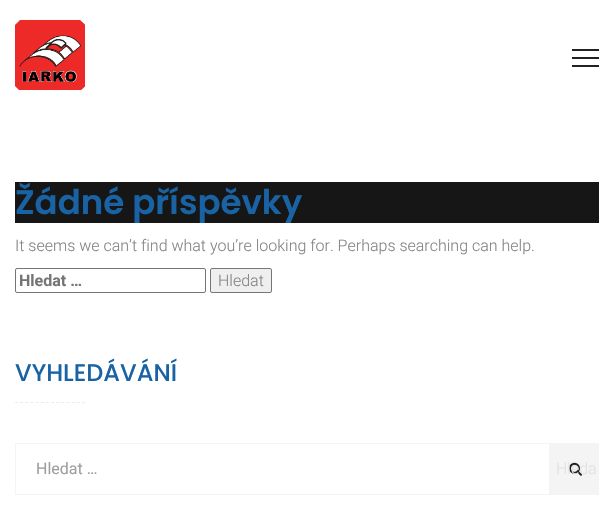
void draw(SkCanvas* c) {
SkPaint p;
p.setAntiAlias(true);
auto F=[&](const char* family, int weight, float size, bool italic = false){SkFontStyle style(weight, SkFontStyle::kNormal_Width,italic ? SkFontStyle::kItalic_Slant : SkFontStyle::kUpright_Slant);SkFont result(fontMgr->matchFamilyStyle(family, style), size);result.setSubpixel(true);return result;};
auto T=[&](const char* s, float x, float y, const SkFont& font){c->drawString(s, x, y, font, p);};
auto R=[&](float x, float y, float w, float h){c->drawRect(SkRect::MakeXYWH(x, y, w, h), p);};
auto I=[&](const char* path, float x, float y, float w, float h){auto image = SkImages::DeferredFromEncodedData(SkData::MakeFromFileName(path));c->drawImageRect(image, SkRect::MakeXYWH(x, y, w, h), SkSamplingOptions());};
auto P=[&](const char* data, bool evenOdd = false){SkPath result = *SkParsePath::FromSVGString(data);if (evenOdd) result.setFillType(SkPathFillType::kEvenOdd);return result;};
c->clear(0xffffffff);
I("1.png",15,20,70,70);
p.setColor(0xff222222);
R(572,57,27,2);
R(572,49,27,2);
R(572,65,27,2);
p.setColor(0xff161616);
R(15,182,584,41);
auto f1 = F("Poppins",600,34);
p.setColor(0xff1963a4);
T("Žádné příspěvky",15,214,f1);
auto f2 = F("Roboto",300,16);
p.setColor(0xff848484);
T("It seems we can’t find what you’re looking for. Perhaps searching can help.",15,251,f2);
p.setStroke(true);
p.setStrokeWidth(1);
p.setColor(0xff767676);
c->drawRoundRect(SkRect::MakeXYWH(15.5,268.5,190,24),1.5,1.5,p);
auto f3 = F("Roboto",700,16);
p.setStroke(false);
p.setColor(0xff757575);
T("Hledat …",19,286,f3);
p.setColor(0xffefefef);
c->drawRoundRect(SkRect::MakeXYWH(210.5,268.5,61,24),1.5,1.5,p);
p.setStroke(true);
p.setColor(0xff767676);
c->drawRoundRect(SkRect::MakeXYWH(210.5,268.5,61,24),1.5,1.5,p);
p.setStroke(false);
p.setColor(0xff848484);
T("Hledat",218,286,f2);
auto f4 = F("Poppins",500,24);
p.setColor(0xff1963a4);
T("VYHLEDÁVÁNÍ",15,381,f4);
p.setStroke(true);
p.setColor(0xffececec);
p.setPathEffect(SkDashPathEffect::Make({{3,2.15f}}, 0));
c->drawPath(P("M15 402.5h70"),p);
p.setPathEffect(nullptr);
p.setColor(0xfff4f4f4);
c->drawRect(SkRect::MakeXYWH(15.5,443.5,583,51),p);
auto f5 = F("Roboto",400,16);
p.setStroke(false);
p.setColor(0xff9e9e9e);
T("Hledat …",36,474,f5);
p.setColor(0xfff4f4f4);
R(549,444,49,50);
I("2.png",569,462,13,14);
p.setColor(0xffe2e2e2);
T("Hleda",556,474,f2);
}
